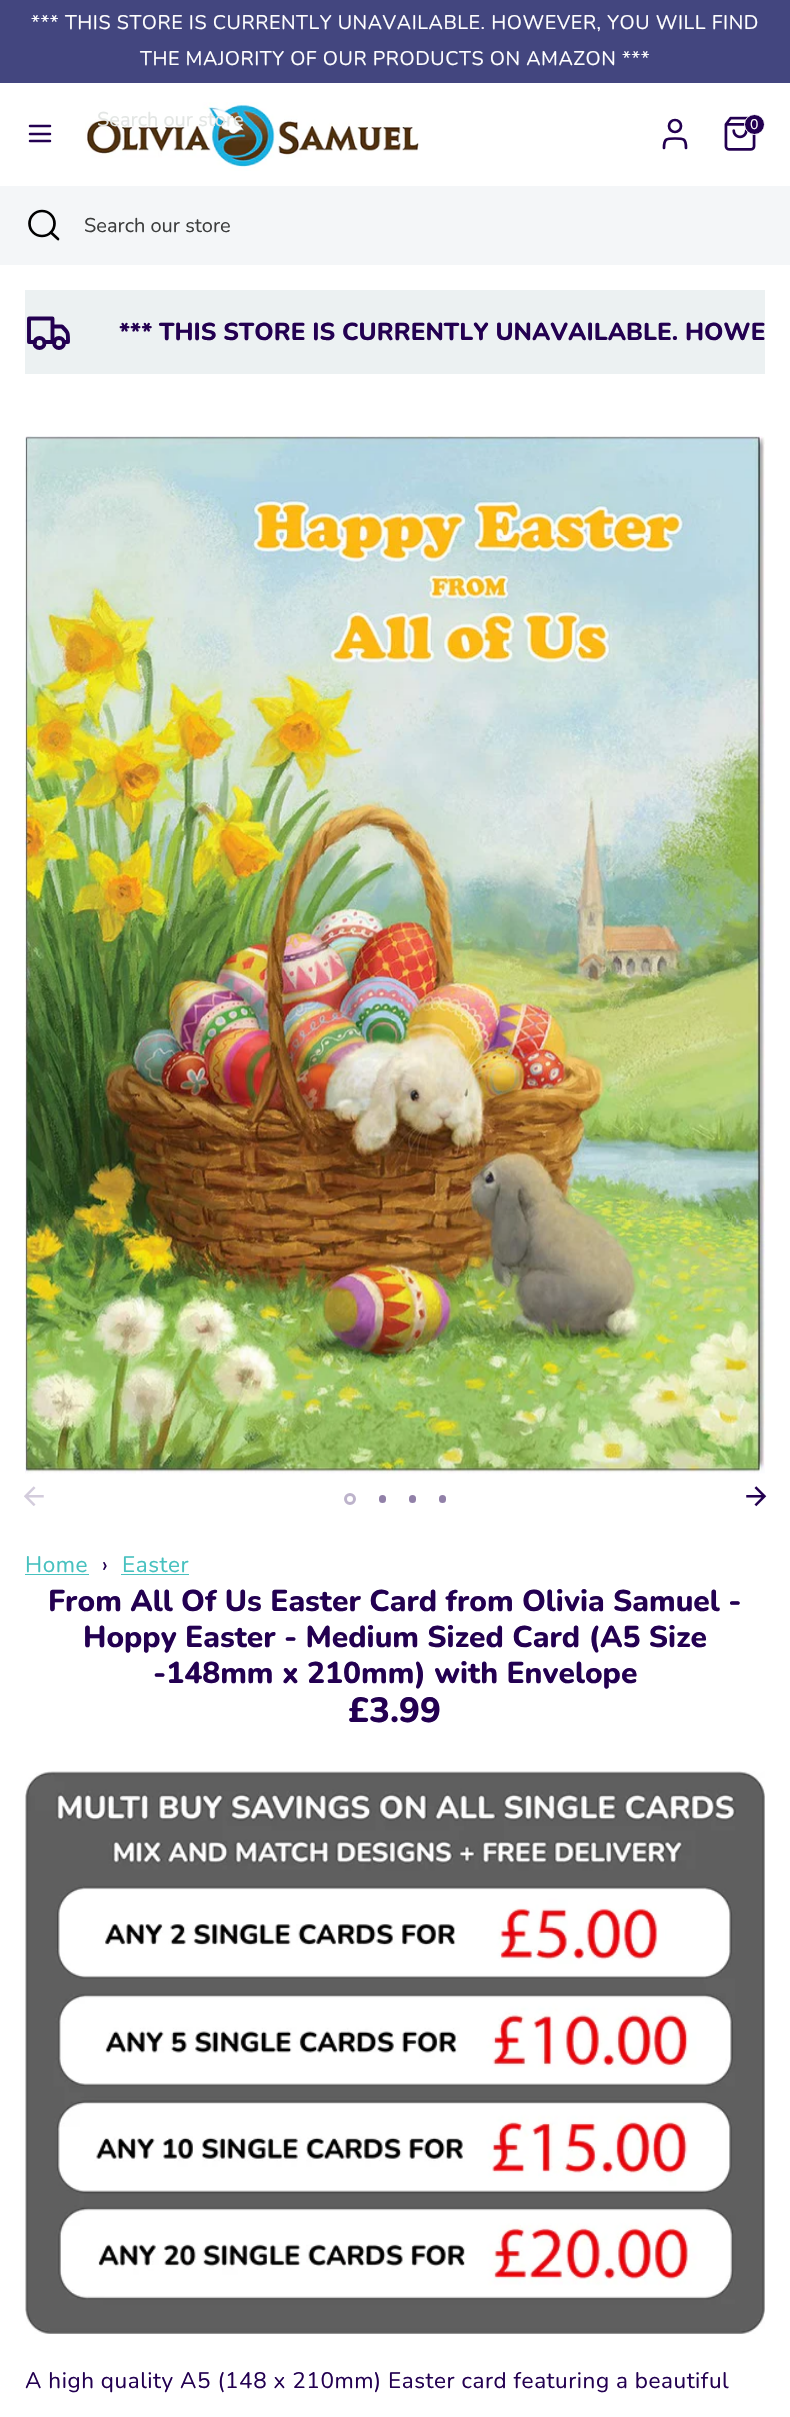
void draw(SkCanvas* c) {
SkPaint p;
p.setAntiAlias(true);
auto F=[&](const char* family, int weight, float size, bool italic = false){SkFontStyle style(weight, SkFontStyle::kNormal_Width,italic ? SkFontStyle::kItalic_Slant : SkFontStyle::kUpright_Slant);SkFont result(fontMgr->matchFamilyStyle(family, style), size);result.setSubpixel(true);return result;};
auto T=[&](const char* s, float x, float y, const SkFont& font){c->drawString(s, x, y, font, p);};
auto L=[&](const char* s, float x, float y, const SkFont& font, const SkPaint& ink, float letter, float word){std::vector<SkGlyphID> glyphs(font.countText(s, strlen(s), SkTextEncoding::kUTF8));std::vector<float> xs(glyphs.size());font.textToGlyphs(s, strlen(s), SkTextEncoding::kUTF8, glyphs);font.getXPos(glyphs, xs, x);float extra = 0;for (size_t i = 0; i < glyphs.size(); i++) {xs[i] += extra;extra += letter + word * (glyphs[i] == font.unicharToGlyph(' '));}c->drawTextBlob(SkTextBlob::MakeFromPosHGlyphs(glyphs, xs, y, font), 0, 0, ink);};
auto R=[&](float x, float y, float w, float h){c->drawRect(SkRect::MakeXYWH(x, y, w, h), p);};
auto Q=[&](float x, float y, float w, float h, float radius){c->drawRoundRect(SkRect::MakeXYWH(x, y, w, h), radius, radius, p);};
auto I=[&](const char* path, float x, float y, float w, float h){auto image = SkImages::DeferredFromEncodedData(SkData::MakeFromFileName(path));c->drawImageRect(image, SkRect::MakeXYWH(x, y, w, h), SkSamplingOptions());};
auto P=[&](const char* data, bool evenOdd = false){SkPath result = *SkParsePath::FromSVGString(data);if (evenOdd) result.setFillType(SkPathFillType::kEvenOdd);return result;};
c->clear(0xffffffff);
p.setColor(0xff43467f);
R(0,0,790,83);
auto f1 = F("Nunito",400,19.7);
p.setColor(0xffffffff);
L("*** THIS STORE IS CURRENTLY UNAVAILABLE. HOWEVER, YOU WILL FIND",31,29,f1,p,.55,0);
L("THE MAJORITY OF OUR PRODUCTS ON AMAZON ***",140,65,f1,p,.55,0);
I("1.png",85,102,335,69);
auto f2 = F("Nunito",400,20);
p.setColor(0xffe3e6e4);
T("Search our store",97,126,f2);
p.setColor(0xfff4f6f8);
R(0,186,790,79);
p.setStroke(true);
p.setStrokeWidth(2.7);
p.setColor(0xff000000);
c->drawCircle(42,223.5,12.5,p);
p.setStrokeCap(SkPaint::kRound_Cap);
p.setStrokeJoin(SkPaint::kRound_Join);
c->drawPath(P("M58 239l-7-6.5"),p);
p.setStroke(false);
p.setColor(0xff3d3e3e);
T("Search our store",84,232,f2);
p.setStroke(true);
p.setStrokeWidth(2.5);
p.setColor(0xff230051);
c->drawPath(P("M30 134h20m-20-8h20m-20 15h20"),p);
p.setStrokeWidth(2.7);
c->drawPath(P("M686 148c0-9.5-2.5-9.5-11-9.5c-8.5 0-11 0-11 9.5"),p);
p.setStrokeCap(SkPaint::kButt_Cap);
p.setStrokeJoin(SkPaint::kMiter_Join);
c->drawCircle(675,126,6,p);
I("2.png",724,116,32,35);
p.setStroke(false);
c->drawCircle(754.5,124.5,10,p);
p.setStroke(true);
p.setStrokeWidth(1);
p.setColor(0xffffffff);
c->drawCircle(754.5,124.5,10,p);
auto f3 = F("Nunito",400,14);
p.setStroke(false);
T("0",750,129,f3);
p.setColor(0xffecf1f2);
R(25,290,740,84);
p.setStroke(true);
p.setStrokeWidth(3.9);
p.setStrokeCap(SkPaint::kRound_Cap);
p.setStrokeJoin(SkPaint::kRound_Join);
p.setColor(0xff230051);
c->drawPath(P("M44.5 342h8v-23.5h-23.5v23.5h6m29 0h4c0-9.5 .5-9-6-15.5h-9.5m0 15.5h2"),p);
p.setStrokeCap(SkPaint::kButt_Cap);
p.setStrokeJoin(SkPaint::kMiter_Join);
c->drawCircle(39.5,343,5,p);
c->drawCircle(59,343,5,p);
auto f4 = F("Nunito",800,24.4);
p.setStroke(false);
T("*** THIS STORE IS CURRENTLY UNAVAILABLE. HOWE",119,340,f4);
I("3.png",25,436,740,1038);
I("4.png",24,1486,20,20);
I("5.png",746,1486,21,21);
p.setStroke(true);
p.setStrokeWidth(3);
p.setColor(0xffbdb3cb);
c->drawCircle(350,1499,4.5,p);
p.setStroke(false);
p.setColor(0xff9180a8);
Q(379,1495,7,8,3.5);
Q(409,1495,7,8,3.5);
Q(439,1495,7,8,3.5);
auto f5 = F("Nunito",400,22.5);
p.setColor(0xff47c1bf);
L("Home",25,1572,f5,p,.55,0);
R(25,1574,64,1);
p.setColor(0xff230051);
L("›",102,1572,f5,p,.55,0);
p.setColor(0xff47c1bf);
L("Easter",122,1572,f5,p,.55,0);
R(121,1574,68,1);
auto f6 = F("Nunito",800,30);
p.setColor(0xff230051);
T("From All Of Us Easter Card from Olivia Samuel -",48,1611,f6);
T("Hoppy Easter - Medium Sized Card (A5 Size",83,1647,f6);
T("-148mm x 210mm) with Envelope",153,1683,f6);
auto f7 = F("Nunito",800,35);
T("£3.99",348,1722,f7);
I("6.png",25,1771,740,563);
L("A high quality A5 (148 x 210mm) Easter card featuring a beautiful",25,2388,f5,p,.55,0);
}
